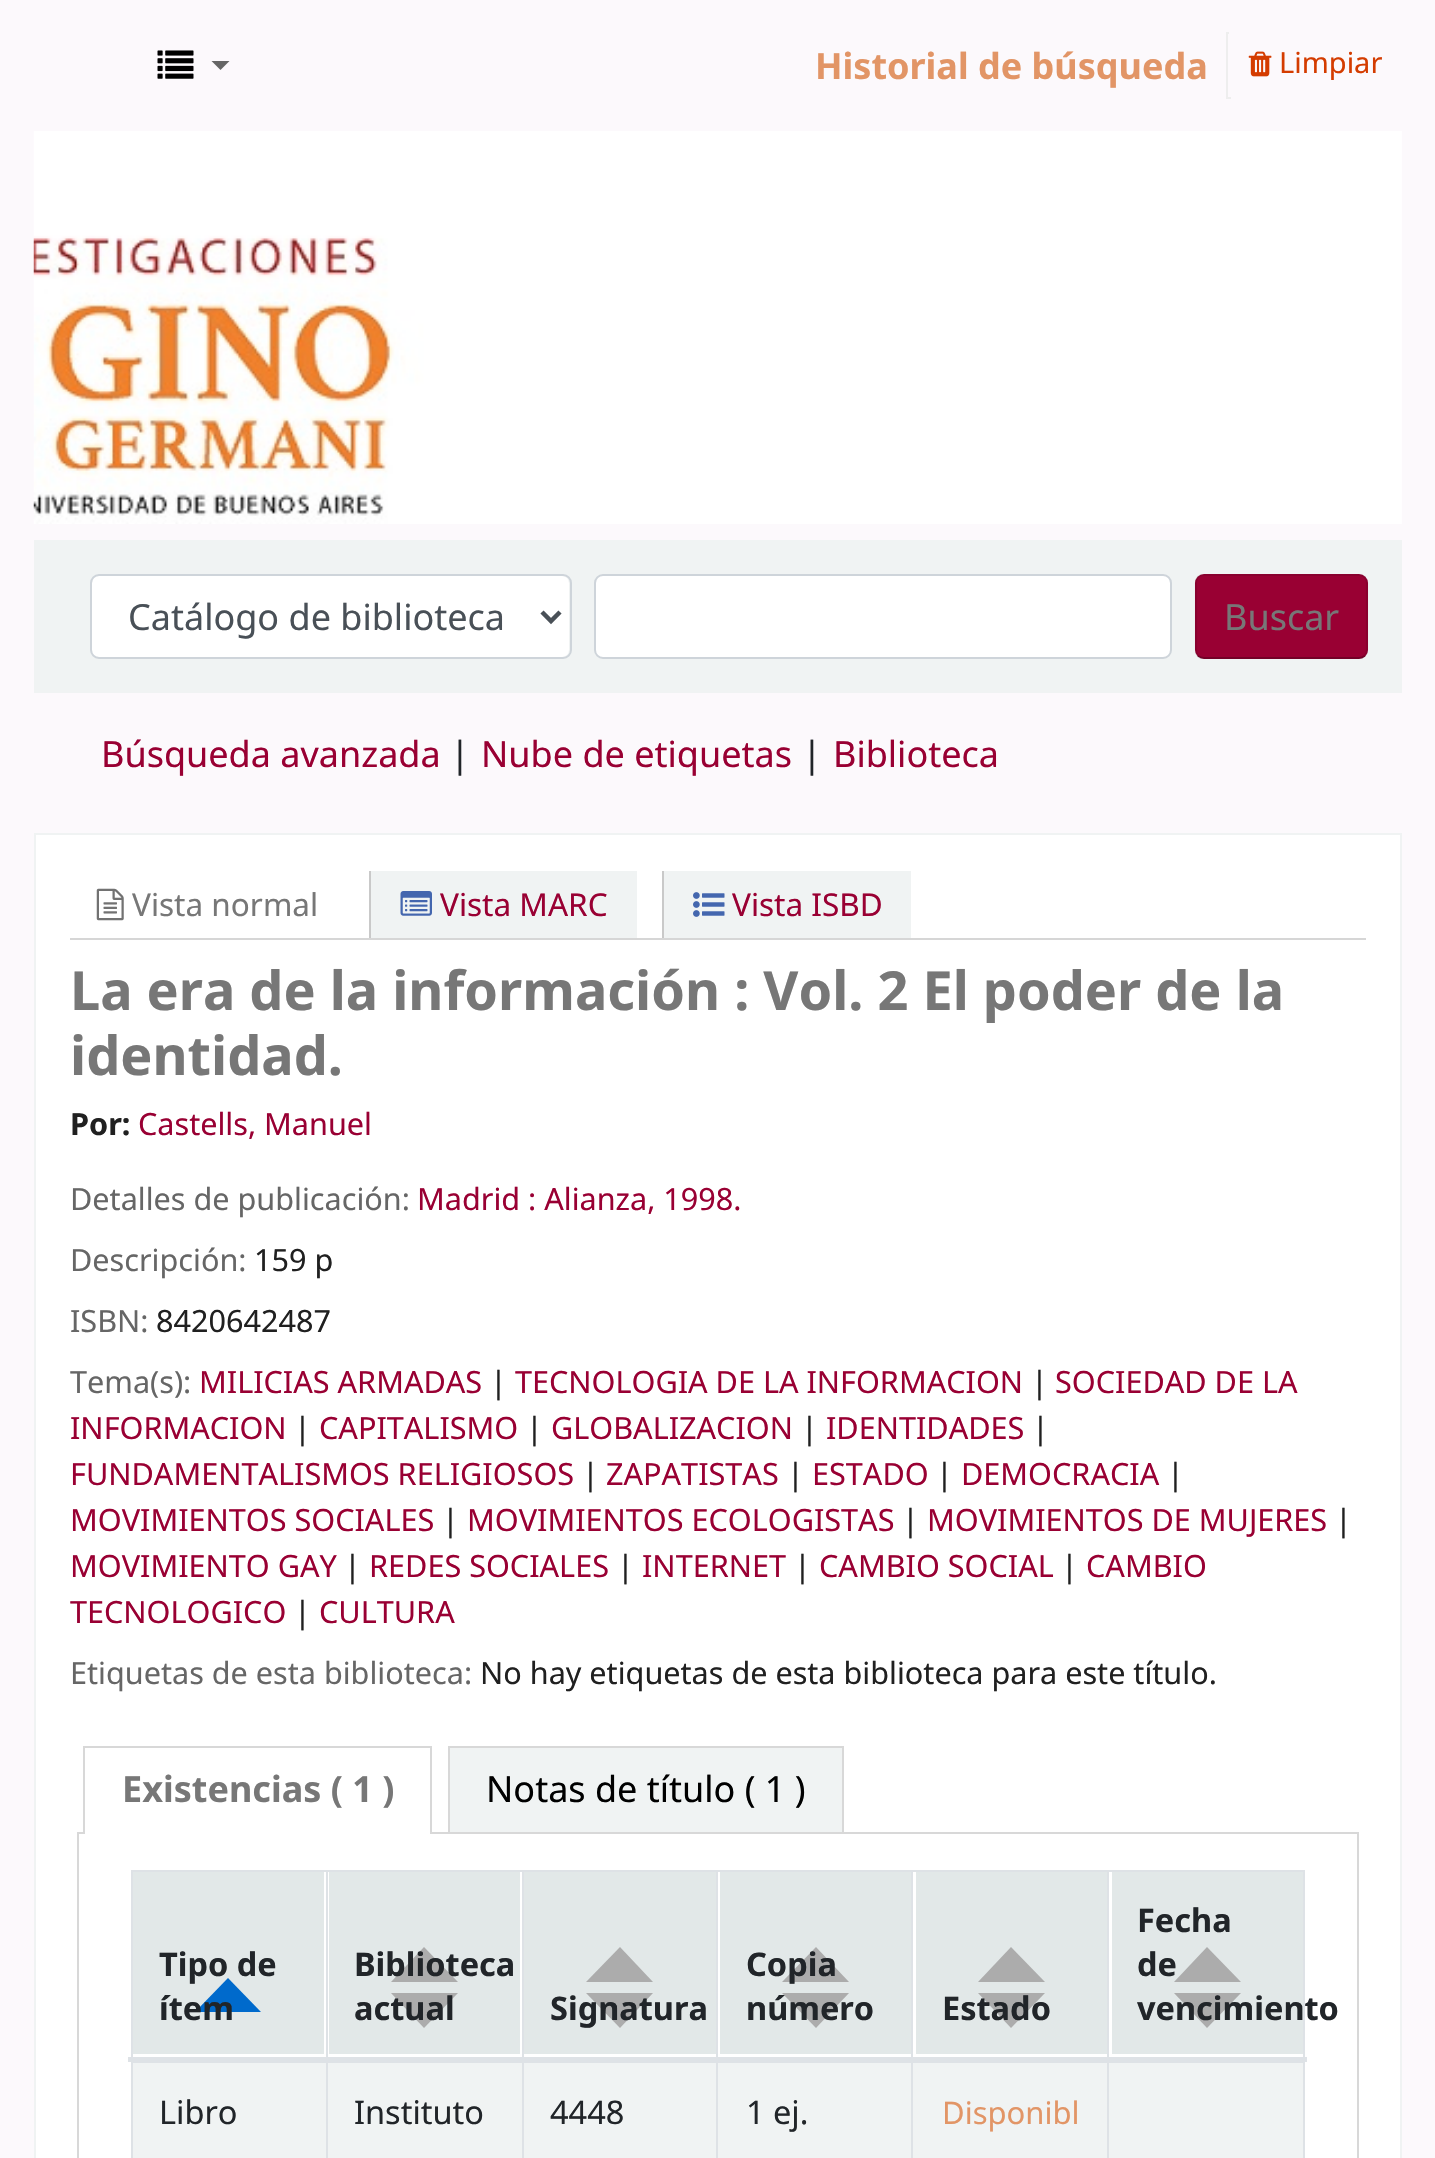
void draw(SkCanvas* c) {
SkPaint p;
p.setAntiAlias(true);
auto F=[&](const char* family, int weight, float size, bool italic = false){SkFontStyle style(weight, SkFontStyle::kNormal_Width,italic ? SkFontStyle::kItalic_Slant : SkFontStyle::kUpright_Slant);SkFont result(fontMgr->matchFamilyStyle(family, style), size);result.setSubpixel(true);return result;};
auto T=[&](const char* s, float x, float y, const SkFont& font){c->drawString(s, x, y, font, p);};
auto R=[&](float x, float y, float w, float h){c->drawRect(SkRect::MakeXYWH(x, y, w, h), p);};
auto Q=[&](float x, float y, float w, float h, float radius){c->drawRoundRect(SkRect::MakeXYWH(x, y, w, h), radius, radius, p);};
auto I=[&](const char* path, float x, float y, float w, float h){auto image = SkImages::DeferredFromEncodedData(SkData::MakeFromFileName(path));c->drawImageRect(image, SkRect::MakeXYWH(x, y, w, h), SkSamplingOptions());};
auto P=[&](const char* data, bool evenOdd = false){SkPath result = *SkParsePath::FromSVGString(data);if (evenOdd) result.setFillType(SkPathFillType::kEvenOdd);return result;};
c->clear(0xfffcf9fc);
I("1.png",157,50,37,29);
p.setColor(0xff666666);
c->drawPath(P("M211.5 61h18l-9 9z"),p);
auto f1 = F("Noto Sans",700,36);
p.setColor(0xffe29566);
T("Historial de búsqueda",815,79,f1);
p.setColor(0xffeeeeee);
R(1226,32,5,2);
p.setColor(0xfffcf9fc);
R(1229,32,2,2);
p.setColor(0xffeeeeee);
R(1226,97,5,2);
R(1226,32,2,67);
I("2.png",1248,51,24,26);
auto f2 = F("Noto Sans",400,29);
p.setColor(0xffd43c00);
T("Limpiar",1279,73,f2);
I("3.png",33,131,1369,393);
p.setColor(0xfff0f3f3);
R(34,540,1368,153);
p.setColor(0xffffffff);
Q(92,576,477,81,7);
p.setStroke(true);
p.setStrokeWidth(2);
p.setColor(0xffced4da);
c->drawRoundRect(SkRect::MakeXYWH(91,575,480,83),8,8,p);
p.setStrokeWidth(4.5);
p.setColor(0xff495057);
c->drawPath(P("M542 612l9 9l9-9"),p);
auto f3 = F("Noto Sans",400,36);
p.setStroke(false);
T("Catálogo de biblioteca",128,630,f3);
p.setColor(0xffffffff);
c->drawRoundRect(SkRect::MakeXYWH(595,575,576,83),8,8,p);
p.setStroke(true);
p.setStrokeWidth(2);
p.setColor(0xffced4da);
c->drawRoundRect(SkRect::MakeXYWH(595,575,576,83),8,8,p);
p.setStroke(false);
p.setColor(0xff990033);
Q(1195,574,173,85,9);
p.setStroke(true);
p.setStrokeWidth(2.2);
p.setColor(0x40000000);
c->drawPath(P("M1364.5 656c-1.5 1.5-3.5 2-5.5 2h-155c-2.5 0-4.5-.5-6-2"),p);
p.setColor(0x1a000000);
c->drawPath(P("M1198 656c-1.5-1.5-2-3.5-2-6v-67c0-2.5 .5-4.5 2-6c1.5-1.5 3.5-2 6-2h155c2 0 4 .5 5.5 2c1.5 1.5 2.5 3.5 2.5 6v67c0 2.5-1 4.5-2.5 6"),p);
p.setStroke(false);
p.setColor(0xff777777);
T("Buscar",1224,630,f3);
p.setColor(0xff990033);
T("Búsqueda avanzada",101,767,f3);
p.setColor(0xff212529);
T("|",450,767,f3);
p.setColor(0xff990033);
T("Nube de etiquetas",481,767,f3);
p.setColor(0xff212529);
T("|",802,767,f3);
p.setColor(0xff990033);
T("Biblioteca",833,767,f3);
p.setColor(0xffffffff);
c->drawRect(SkRect::MakeXYWH(35,834,1366,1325),p);
p.setStroke(true);
p.setStrokeWidth(2);
p.setColor(0xfff0f3f3);
c->drawRect(SkRect::MakeXYWH(35,834,1366,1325),p);
p.setStroke(false);
p.setColor(0xffd6d6d6);
R(70,938,1296,2);
I("4.png",96,888,28,33);
auto f4 = F("Noto Sans",400,31.5);
p.setColor(0xff777777);
T("Vista normal",132,916,f4);
p.setColor(0xfff0f3f3);
R(371,871,266,67);
p.setColor(0xffc9c9c9);
R(369,871,2,67);
I("5.png",400,891,32,25);
p.setColor(0xff990033);
T("Vista MARC",440,916,f4);
p.setColor(0xfff0f3f3);
R(664,871,247,67);
p.setColor(0xffc9c9c9);
R(662,871,2,67);
I("6.png",693,892,32,25);
p.setColor(0xff990033);
T("Vista ISBD",732,916,f4);
auto f5 = F("Noto Sans",700,54);
p.setColor(0xff777777);
T("La era de la información : Vol. 2 El poder de la",70,1010,f5);
T("identidad.",70,1075,f5);
auto f6 = F("Noto Sans",700,30.6);
p.setColor(0xff202020);
T("Por:",70,1135,f6);
auto f7 = F("Noto Sans",400,30.6);
p.setColor(0xff990033);
T("Castells, Manuel",138,1135,f7);
p.setColor(0xff666666);
T("Detalles de publicación:",70,1210,f7);
p.setColor(0xff990033);
T("Madrid : Alianza, 1998.",417,1210,f7);
p.setColor(0xff666666);
T("Descripción:",70,1271,f7);
p.setColor(0xff202020);
T("159 p",254,1271,f7);
p.setColor(0xff666666);
T("ISBN:",70,1332,f7);
p.setColor(0xff202020);
T("8420642487",156,1332,f7);
p.setColor(0xff666666);
T("Tema(s):",70,1393,f7);
p.setColor(0xff990033);
T("MILICIAS ARMADAS",199,1393,f7);
p.setColor(0xff202020);
T("|",490,1393,f7);
p.setColor(0xff990033);
T("TECNOLOGIA DE LA INFORMACION",515,1393,f7);
p.setColor(0xff202020);
T("|",1031,1393,f7);
p.setColor(0xff990033);
T("SOCIEDAD DE LA",1055,1393,f7);
T("INFORMACION",70,1439,f7);
p.setColor(0xff202020);
T("|",294,1439,f7);
p.setColor(0xff990033);
T("CAPITALISMO",319,1439,f7);
p.setColor(0xff202020);
T("|",526,1439,f7);
p.setColor(0xff990033);
T("GLOBALIZACION",551,1439,f7);
p.setColor(0xff202020);
T("|",801,1439,f7);
p.setColor(0xff990033);
T("IDENTIDADES",826,1439,f7);
p.setColor(0xff202020);
T("|",1032,1439,f7);
p.setColor(0xff990033);
T("FUNDAMENTALISMOS RELIGIOSOS",70,1485,f7);
p.setColor(0xff202020);
T("|",582,1485,f7);
p.setColor(0xff990033);
T("ZAPATISTAS",606,1485,f7);
p.setColor(0xff202020);
T("|",787,1485,f7);
p.setColor(0xff990033);
T("ESTADO",812,1485,f7);
p.setColor(0xff202020);
T("|",936,1485,f7);
p.setColor(0xff990033);
T("DEMOCRACIA",961,1485,f7);
p.setColor(0xff202020);
T("|",1167,1485,f7);
p.setColor(0xff990033);
T("MOVIMIENTOS SOCIALES",70,1531,f7);
p.setColor(0xff202020);
T("|",442,1531,f7);
p.setColor(0xff990033);
T("MOVIMIENTOS ECOLOGISTAS",467,1531,f7);
p.setColor(0xff202020);
T("|",902,1531,f7);
p.setColor(0xff990033);
T("MOVIMIENTOS DE MUJERES",927,1531,f7);
p.setColor(0xff202020);
T("|",1335,1531,f7);
p.setColor(0xff990033);
T("MOVIMIENTO GAY",70,1577,f7);
p.setColor(0xff202020);
T("|",344,1577,f7);
p.setColor(0xff990033);
T("REDES SOCIALES",369,1577,f7);
p.setColor(0xff202020);
T("|",617,1577,f7);
p.setColor(0xff990033);
T("INTERNET",642,1577,f7);
p.setColor(0xff202020);
T("|",794,1577,f7);
p.setColor(0xff990033);
T("CAMBIO SOCIAL",819,1577,f7);
p.setColor(0xff202020);
T("|",1061,1577,f7);
p.setColor(0xff990033);
T("CAMBIO",1086,1577,f7);
T("TECNOLOGICO",70,1623,f7);
p.setColor(0xff202020);
T("|",294,1623,f7);
p.setColor(0xff990033);
T("CULTURA",319,1623,f7);
p.setColor(0xff666666);
T("Etiquetas de esta biblioteca:",70,1684,f7);
p.setColor(0xff202020);
T("No hay etiquetas de esta biblioteca para este título.",480,1684,f7);
p.setStroke(true);
p.setColor(0xffd8d8d8);
c->drawRect(SkRect::MakeXYWH(78,1833,1280,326),p);
p.setStroke(false);
p.setColor(0xffffffff);
R(85,1832,345,2);
p.setColor(0xffd8d8d8);
R(83,1746,349,2);
R(430,1746,2,88);
R(83,1746,2,88);
p.setColor(0xff777777);
T("Existencias ( 1 )",122,1802,f1);
p.setColor(0xfff0f3f3);
R(450,1748,392,84);
p.setColor(0xffd8d8d8);
R(448,1746,396,2);
R(842,1746,2,86);
R(448,1746,2,86);
p.setColor(0xff000000);
T("Notas de título ( 1 )",486,1802,f3);
p.setColor(0xffdee2e6);
R(131,1870,1174,2);
R(1303,1870,2,288);
R(131,1870,2,288);
p.setColor(0xffe2e8e8);
R(133,1872,191,182);
p.setColor(0xff006acc);
c->drawPath(P("M261 2012h-66l33-34z"),p);
auto f8 = F("Noto Sans",700,32.5);
p.setColor(0xff212529);
T("Tipo de",159,1976,f8);
T("ítem",159,2020,f8);
p.setColor(0xffe2e8e8);
R(329,1872,191,182);
p.setColor(0xffacacac);
c->drawPath(P("M458 1993h-67l33 35z"),p);
c->drawPath(P("M458 1982h-67l33-35z"),p);
p.setColor(0xff212529);
T("Biblioteca",354,1976,f8);
T("actual",354,2020,f8);
p.setColor(0xffe2e8e8);
R(524,1872,192,182);
p.setColor(0xffacacac);
c->drawPath(P("M653 1993h-67l34 35z"),p);
c->drawPath(P("M653 1982h-67l34-35z"),p);
p.setColor(0xff212529);
T("Signatura",550,2020,f8);
p.setColor(0xffe2e8e8);
R(720,1872,191,182);
p.setColor(0xffacacac);
c->drawPath(P("M849 1993h-67l34 35z"),p);
c->drawPath(P("M849 1982h-67l34-35z"),p);
p.setColor(0xff212529);
T("Copia",746,1976,f8);
T("número",746,2020,f8);
p.setColor(0xffe2e8e8);
R(916,1872,191,182);
p.setColor(0xffacacac);
c->drawPath(P("M1045 1993h-67l33 35z"),p);
c->drawPath(P("M1045 1982h-67l33-35z"),p);
p.setColor(0xff212529);
T("Estado",942,2020,f8);
p.setColor(0xffe2e8e8);
R(1112,1872,191,182);
p.setColor(0xffacacac);
c->drawPath(P("M1241 1993h-67l33 35z"),p);
c->drawPath(P("M1241 1982h-67l33-35z"),p);
p.setColor(0xffdee2e6);
R(1107,2062,198,1);
R(1107,1870,2,288);
R(911,2062,198,1);
p.setColor(0xfff0f3f3);
R(718,2063,389,95);
p.setColor(0xffdee2e6);
R(911,1870,2,288);
R(716,2062,198,1);
R(716,1870,2,288);
R(522,2062,196,1);
R(522,1870,2,288);
R(326,2062,198,1);
R(326,1870,2,288);
R(128,2057,1179,5);
p.setColor(0xff212529);
T("Fecha",1137,1932,f8);
T("de",1137,1976,f8);
T("vencimiento",1137,2020,f8);
p.setColor(0xfff0f3f3);
R(133,2063,193,95);
p.setColor(0xffdee2e6);
R(131,2062,198,1);
auto f9 = F("Noto Sans",400,32.5);
p.setColor(0xff212529);
T("Libro",159,2124,f9);
p.setColor(0xfff0f3f3);
R(328,2063,194,95);
p.setColor(0xff212529);
T("Instituto",354,2124,f9);
p.setColor(0xfff0f3f3);
R(524,2063,192,95);
p.setColor(0xff212529);
T("4448",550,2124,f9);
T("1 ej.",746,2124,f9);
auto f10 = F("Noto Sans",400,31);
p.setColor(0xffe29566);
T("Disponibl",942,2124,f10);
p.setColor(0xfff0f3f3);
R(1109,2063,194,95);
}
